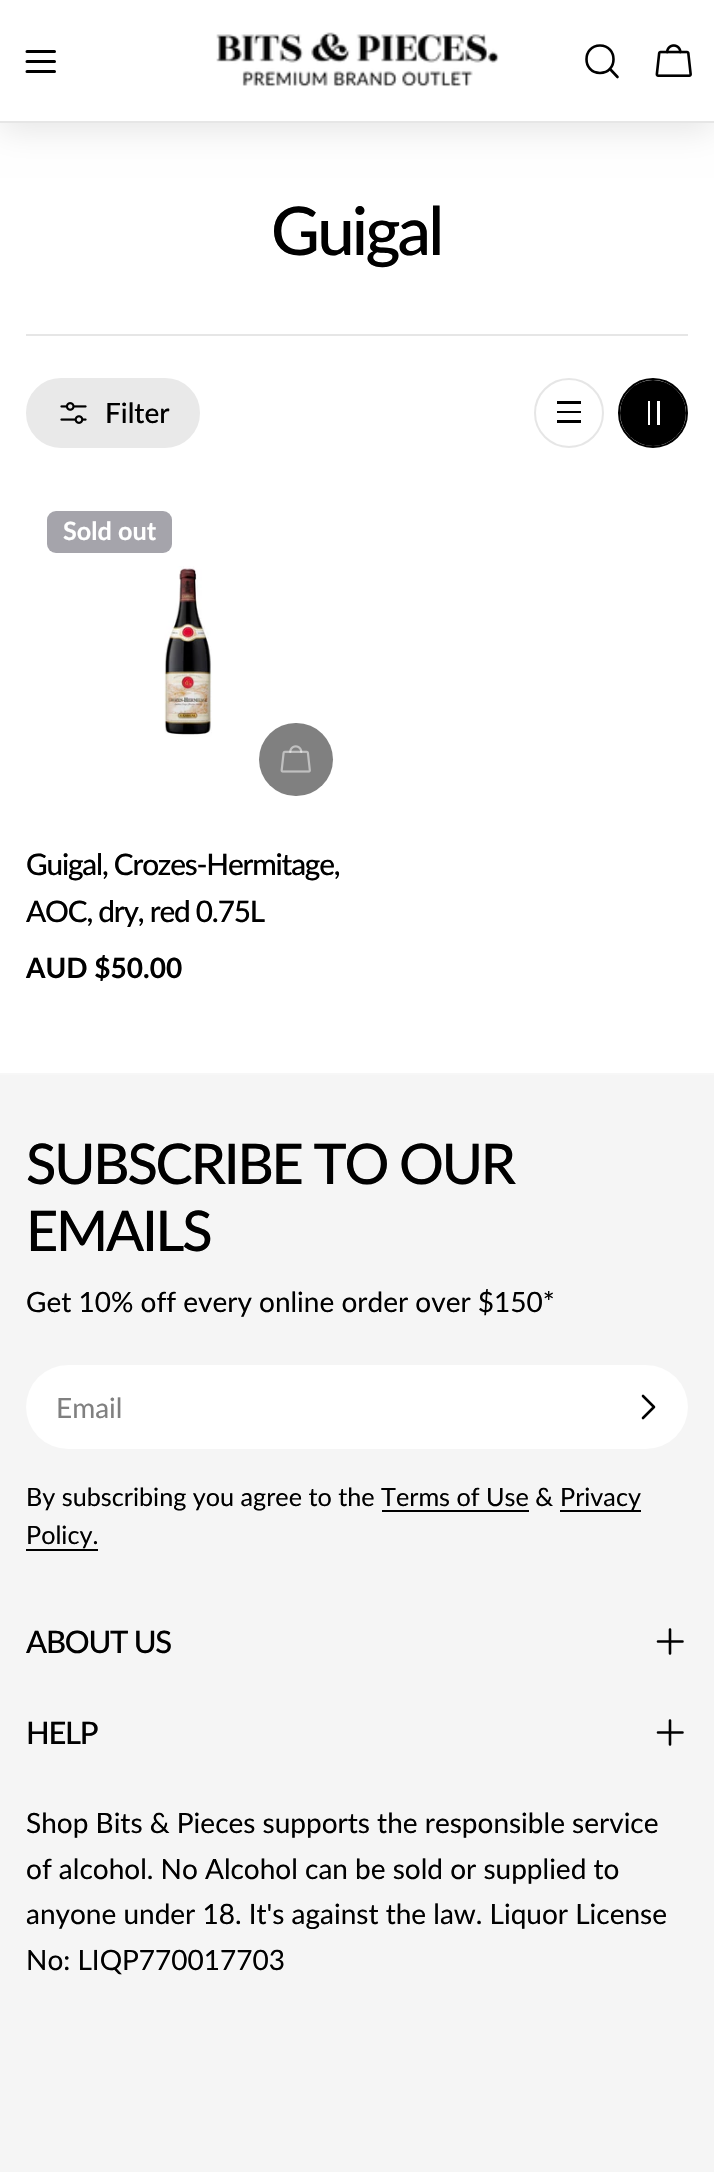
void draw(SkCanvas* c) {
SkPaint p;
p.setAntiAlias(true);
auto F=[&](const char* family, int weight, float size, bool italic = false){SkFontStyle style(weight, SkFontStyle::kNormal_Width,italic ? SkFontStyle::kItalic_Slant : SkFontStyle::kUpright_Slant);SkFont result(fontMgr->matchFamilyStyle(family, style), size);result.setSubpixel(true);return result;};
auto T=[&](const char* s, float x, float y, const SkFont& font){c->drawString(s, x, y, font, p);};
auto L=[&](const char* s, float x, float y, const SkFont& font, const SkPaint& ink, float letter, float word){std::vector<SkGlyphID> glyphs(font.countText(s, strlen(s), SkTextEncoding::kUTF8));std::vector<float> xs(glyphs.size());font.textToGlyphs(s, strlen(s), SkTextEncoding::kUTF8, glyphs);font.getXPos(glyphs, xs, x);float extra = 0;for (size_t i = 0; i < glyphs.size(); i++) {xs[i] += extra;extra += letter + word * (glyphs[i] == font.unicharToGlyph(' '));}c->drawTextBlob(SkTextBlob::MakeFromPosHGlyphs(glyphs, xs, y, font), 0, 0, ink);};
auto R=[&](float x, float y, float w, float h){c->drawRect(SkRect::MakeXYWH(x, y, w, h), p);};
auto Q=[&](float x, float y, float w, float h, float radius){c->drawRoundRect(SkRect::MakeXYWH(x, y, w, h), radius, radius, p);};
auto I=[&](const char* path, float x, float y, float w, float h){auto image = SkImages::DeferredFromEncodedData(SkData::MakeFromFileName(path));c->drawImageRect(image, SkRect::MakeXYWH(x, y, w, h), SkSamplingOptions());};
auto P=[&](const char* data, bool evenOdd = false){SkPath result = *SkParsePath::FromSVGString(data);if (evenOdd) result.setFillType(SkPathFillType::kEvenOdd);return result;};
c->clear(0xffffffff);
p.setColor(0x1a000000);
p.setMaskFilter(SkMaskFilter::MakeBlur(kNormal_SkBlurStyle, 16));
c->drawRect(SkRect::MakeXYWH(0,7,714,123),p);
p.setMaskFilter(nullptr);
p.setColor(0xffe6e6e6);
R(0,121,714,2);
p.setColor(0xffffffff);
R(0,0,714,121);
p.setStroke(true);
p.setStrokeWidth(3);
p.setStrokeCap(SkPaint::kRound_Cap);
p.setStrokeJoin(SkPaint::kRound_Join);
p.setColor(0xff000000);
c->drawPath(P("M27 61.5h27.5m-27.5-10h27.5m-27.5 20h27.5"),p);
I("1.png",216,32,283,55);
p.setStrokeWidth(2.6);
c->drawPath(P("M600 73c18 0 18-27.5 0-27.5c-18 0-18 27.5 0 27.5zm10-4l7.5 8"),p);
I("2.png",655,44,37,33);
auto f1 = F("Lato",500,67);
p.setStroke(false);
L("Guigal",271,255,f1,p,-2.75,0);
p.setColor(0xffe6e6e6);
R(26,334,662,2);
p.setColor(0xffe9e9e9);
c->drawRoundRect(SkRect::MakeXYWH(27,379,172,68),34,34,p);
p.setStroke(true);
p.setStrokeWidth(2);
p.setStrokeCap(SkPaint::kButt_Cap);
p.setStrokeJoin(SkPaint::kMiter_Join);
c->drawRoundRect(SkRect::MakeXYWH(27,379,172,68),34,34,p);
I("3.png",60,402,27,22);
auto f2 = F("Lato",500,28);
p.setStroke(false);
p.setColor(0xff000000);
T("Filter",105,423,f2);
p.setStroke(true);
p.setColor(0xffe6e6e6);
c->drawCircle(569,413,34,p);
p.setStroke(false);
p.setColor(0xff000000);
R(557,420,24,3);
R(557,411,24,2);
R(557,401,24,3);
p.setStroke(true);
c->drawCircle(653,413,34,p);
p.setStroke(false);
c->drawCircle(653,413,33,p);
p.setColor(0xffffffff);
R(648,401,2,24);
R(657,401,3,24);
p.setColor(0xffa5a4ab);
Q(47,511,125,42,9);
auto f3 = F("Lato",700,25.2);
p.setColor(0xffffffff);
T("Sold out",63,540,f3);
I("4.png",164,566,48,171);
p.setColor(0xff808080);
Q(259,723,74,73,36.5);
I("5.png",280,745,31,28);
auto f4 = F("Lato",500,29.75);
p.setColor(0xff000000);
L("Guigal, Crozes-Hermitage,",26,875,f4,p,-1.2,0);
L("AOC, dry, red 0.75L",26,922,f4,p,-1.2,0);
auto f5 = F("Lato",700,28);
T("AUD $50.00",26,978,f5);
p.setColor(0xfff5f5f5);
R(0,1075,714,1097);
p.setColor(0xfff7f7f7);
R(0,1073,714,2);
auto f6 = F("Lato",500,56);
p.setColor(0xff000000);
L("SUBSCRIBE TO OUR",26,1184,f6,p,-2.25,0);
L("EMAILS",26,1251,f6,p,-2.25,0);
auto f7 = F("Lato",400,28);
T("Get 10% off every online order over $150*",26,1312,f7);
p.setColor(0xffffffff);
Q(26,1365,662,84,42);
p.setColor(0xff808080);
T("Email",56,1418,f7);
p.setStroke(true);
p.setStrokeWidth(2.6);
p.setStrokeCap(SkPaint::kRound_Cap);
p.setStrokeJoin(SkPaint::kRound_Join);
p.setColor(0xff000000);
c->drawPath(P("M643 1396l11 11l-11 11"),p);
auto f8 = F("Lato",400,25.2);
p.setStroke(false);
T("By subscribing you agree to the Terms of Use &",26,1506,f8);
R(560,1510,81,2);
T("Privacy",560,1506,f8);
R(382,1510,147,2);
T("Policy.",26,1544,f8);
R(26,1549,72,2);
auto f9 = F("Lato",500,31);
L("ABOUT US",26,1653,f9,p,-1.25,0);
p.setStroke(true);
c->drawPath(P("M658 1641.5h24.5m-12.5-12v24"),p);
p.setStroke(false);
L("HELP",26,1744,f9,p,-1.25,0);
p.setStroke(true);
c->drawPath(P("M658 1732.5h24.5m-12.5-12v24"),p);
p.setStroke(false);
T("Shop Bits & Pieces supports the responsible service",26,1833,f7);
T("of alcohol. No Alcohol can be sold or supplied to",26,1879,f7);
T("anyone under 18. It's against the law. Liquor License",26,1924,f7);
T("No: LIQP770017703",26,1970,f7);
}
